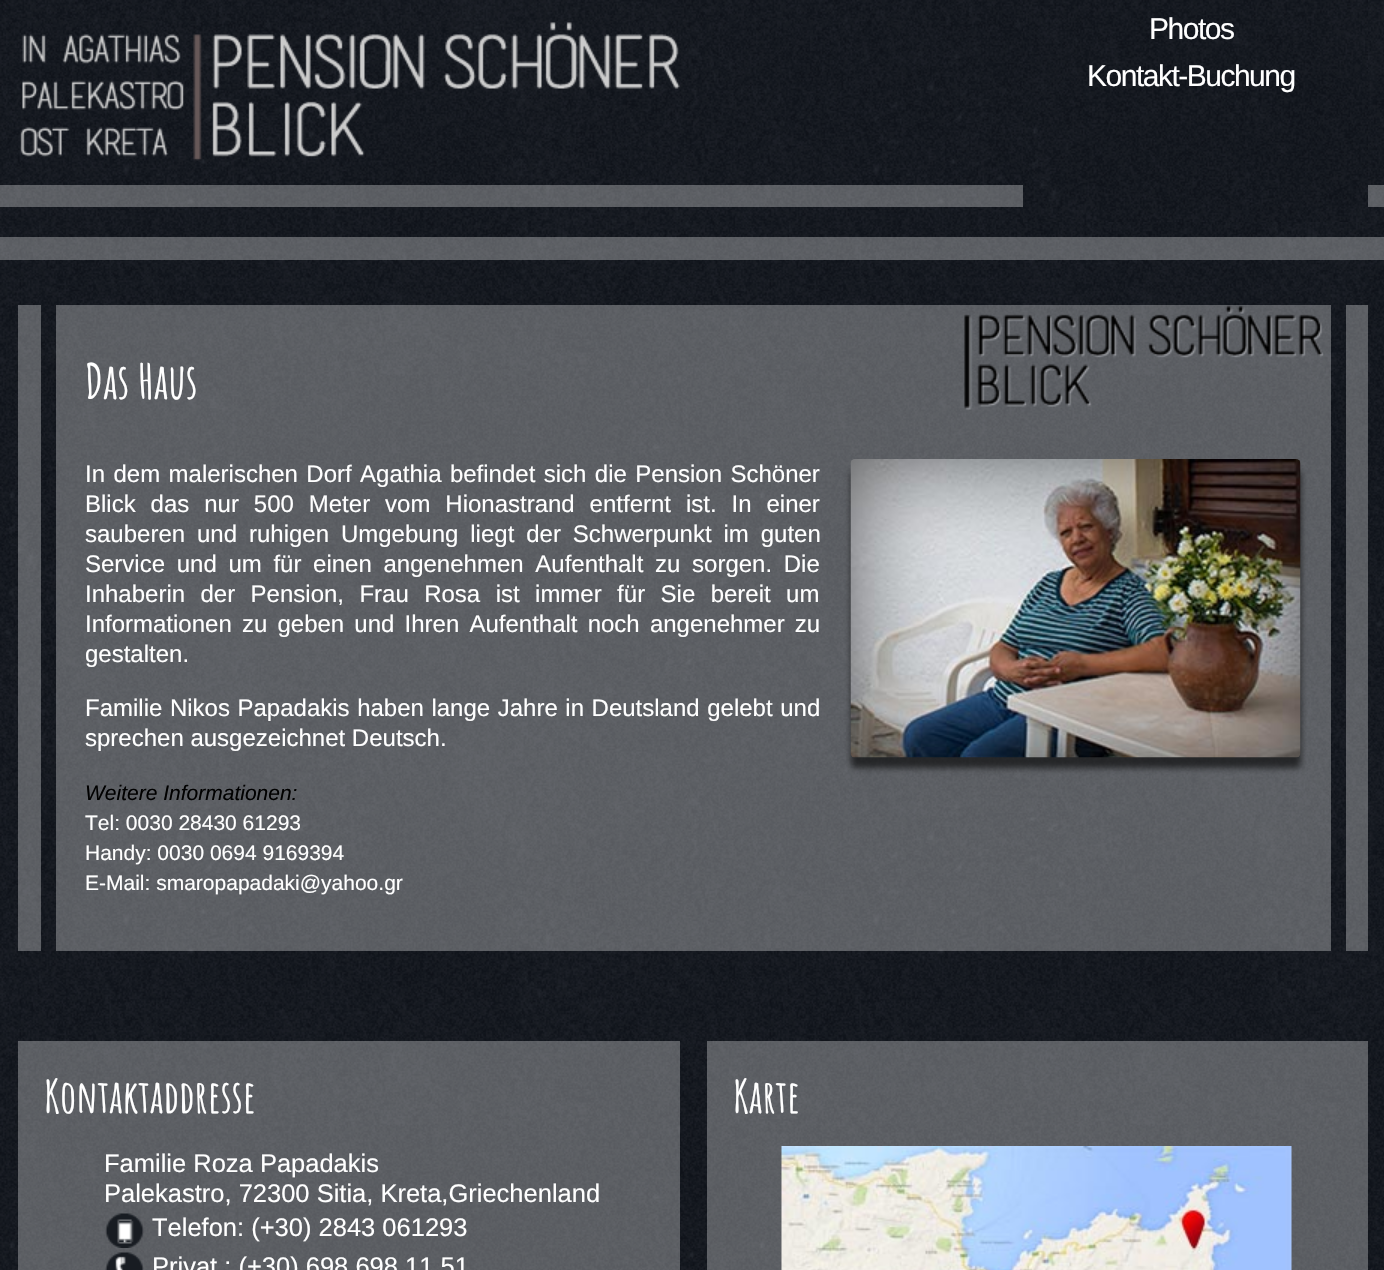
void draw(SkCanvas* c) {
SkPaint p;
p.setAntiAlias(true);
auto F=[&](const char* family, int weight, float size, bool italic = false){SkFontStyle style(weight, SkFontStyle::kNormal_Width,italic ? SkFontStyle::kItalic_Slant : SkFontStyle::kUpright_Slant);SkFont result(fontMgr->matchFamilyStyle(family, style), size);result.setSubpixel(true);return result;};
auto T=[&](const char* s, float x, float y, const SkFont& font){c->drawString(s, x, y, font, p);};
auto L=[&](const char* s, float x, float y, const SkFont& font, const SkPaint& ink, float letter, float word){std::vector<SkGlyphID> glyphs(font.countText(s, strlen(s), SkTextEncoding::kUTF8));std::vector<float> xs(glyphs.size());font.textToGlyphs(s, strlen(s), SkTextEncoding::kUTF8, glyphs);font.getXPos(glyphs, xs, x);float extra = 0;for (size_t i = 0; i < glyphs.size(); i++) {xs[i] += extra;extra += letter + word * (glyphs[i] == font.unicharToGlyph(' '));}c->drawTextBlob(SkTextBlob::MakeFromPosHGlyphs(glyphs, xs, y, font), 0, 0, ink);};
auto R=[&](float x, float y, float w, float h){c->drawRect(SkRect::MakeXYWH(x, y, w, h), p);};
auto I=[&](const char* path, float x, float y, float w, float h){auto image = SkImages::DeferredFromEncodedData(SkData::MakeFromFileName(path));c->drawImageRect(image, SkRect::MakeXYWH(x, y, w, h), SkSamplingOptions());};
c->clear(0xffffffff);
I("1.png",0,0,1384,1270);
I("2.png",20,22,660,139);
p.setColor(0x4dffffff);
R(0,185,1384,22);
I("3.png",1023,0,345,222);
auto f1 = F("Liberation Sans",400,30);
p.setColor(0xffffffff);
L("Photos",1149,39,f1,p,-1.5,0);
L("Kontakt-Buchung",1087,86,f1,p,-1.5,0);
p.setColor(0x4dffffff);
R(0,237,1384,23);
R(1346,305,22,646);
R(18,305,23,646);
R(56,305,1275,646);
I("4.png",964,305,360,105);
auto f2 = F("Amatic SC",700,48);
p.setColor(0xffffffff);
T("Das Haus",85,399,f2);
auto f3 = F("Liberation Sans",400,24);
L("In dem malerischen Dorf Agathia befindet sich die Pension Schöner",85,482,f3,p,0,1.75);
p.setColor(0x99000000);
p.setMaskFilter(SkMaskFilter::MakeBlur(kNormal_SkBlurStyle, 3));
c->drawRoundRect(SkRect::MakeXYWH(851,470,450,298),5,5,p);
p.setMaskFilter(nullptr);
I("5.png",850,459,451,299);
p.setColor(0xffffffff);
L("Blick das nur 500 Meter vom Hionastrand entfernt ist. In einer",85,512,f3,p,0,8.25);
L("sauberen und ruhigen Umgebung liegt der Schwerpunkt im guten",85,542,f3,p,0,5.25);
L("Service und um für einen angenehmen Aufenthalt zu sorgen. Die",85,572,f3,p,0,5);
L("Inhaberin der Pension, Frau Rosa ist immer für Sie bereit um",85,602,f3,p,0,8.75);
L("Informationen zu geben und Ihren Aufenthalt noch angenehmer zu",85,632,f3,p,0,3.5);
T("gestalten.",85,662,f3);
L("Familie Nikos Papadakis haben lange Jahre in Deutsland gelebt und",85,716,f3,p,0,.9);
T("sprechen ausgezeichnet Deutsch.",85,746,f3);
auto f4 = F("Liberation Sans",400,21,true);
p.setColor(0xff000000);
T("Weitere Informationen:",85,800,f4);
auto f5 = F("Liberation Sans",400,21);
p.setColor(0xffffffff);
T("Tel: 0030 28430 61293",85,830,f5);
T("Handy: 0030 0694 9169394",85,860,f5);
T("E-Mail: smaropapadaki@yahoo.gr",85,890,f5);
p.setColor(0x4dffffff);
R(18,1041,662,229);
auto f6 = F("Amatic SC",700,45);
p.setColor(0xffffffff);
T("Kontaktaddresse",44,1113,f6);
auto f7 = F("Liberation Sans",400,25.5);
T("Familie Roza Papadakis",104,1172,f7);
T("Palekastro, 72300 Sitia, Kreta,Griechenland",104,1202,f7);
I("6.png",105,1213,39,35);
T("Telefon: (+30) 2843 061293",152,1236,f7);
I("7.png",105,1252,39,18);
T("Privat : (+30) 698 698 11 51",152,1275,f7);
p.setColor(0x4dffffff);
R(707,1041,661,229);
p.setColor(0xffffffff);
T("Karte",733,1113,f6);
I("8.png",781,1146,511,124);
}
